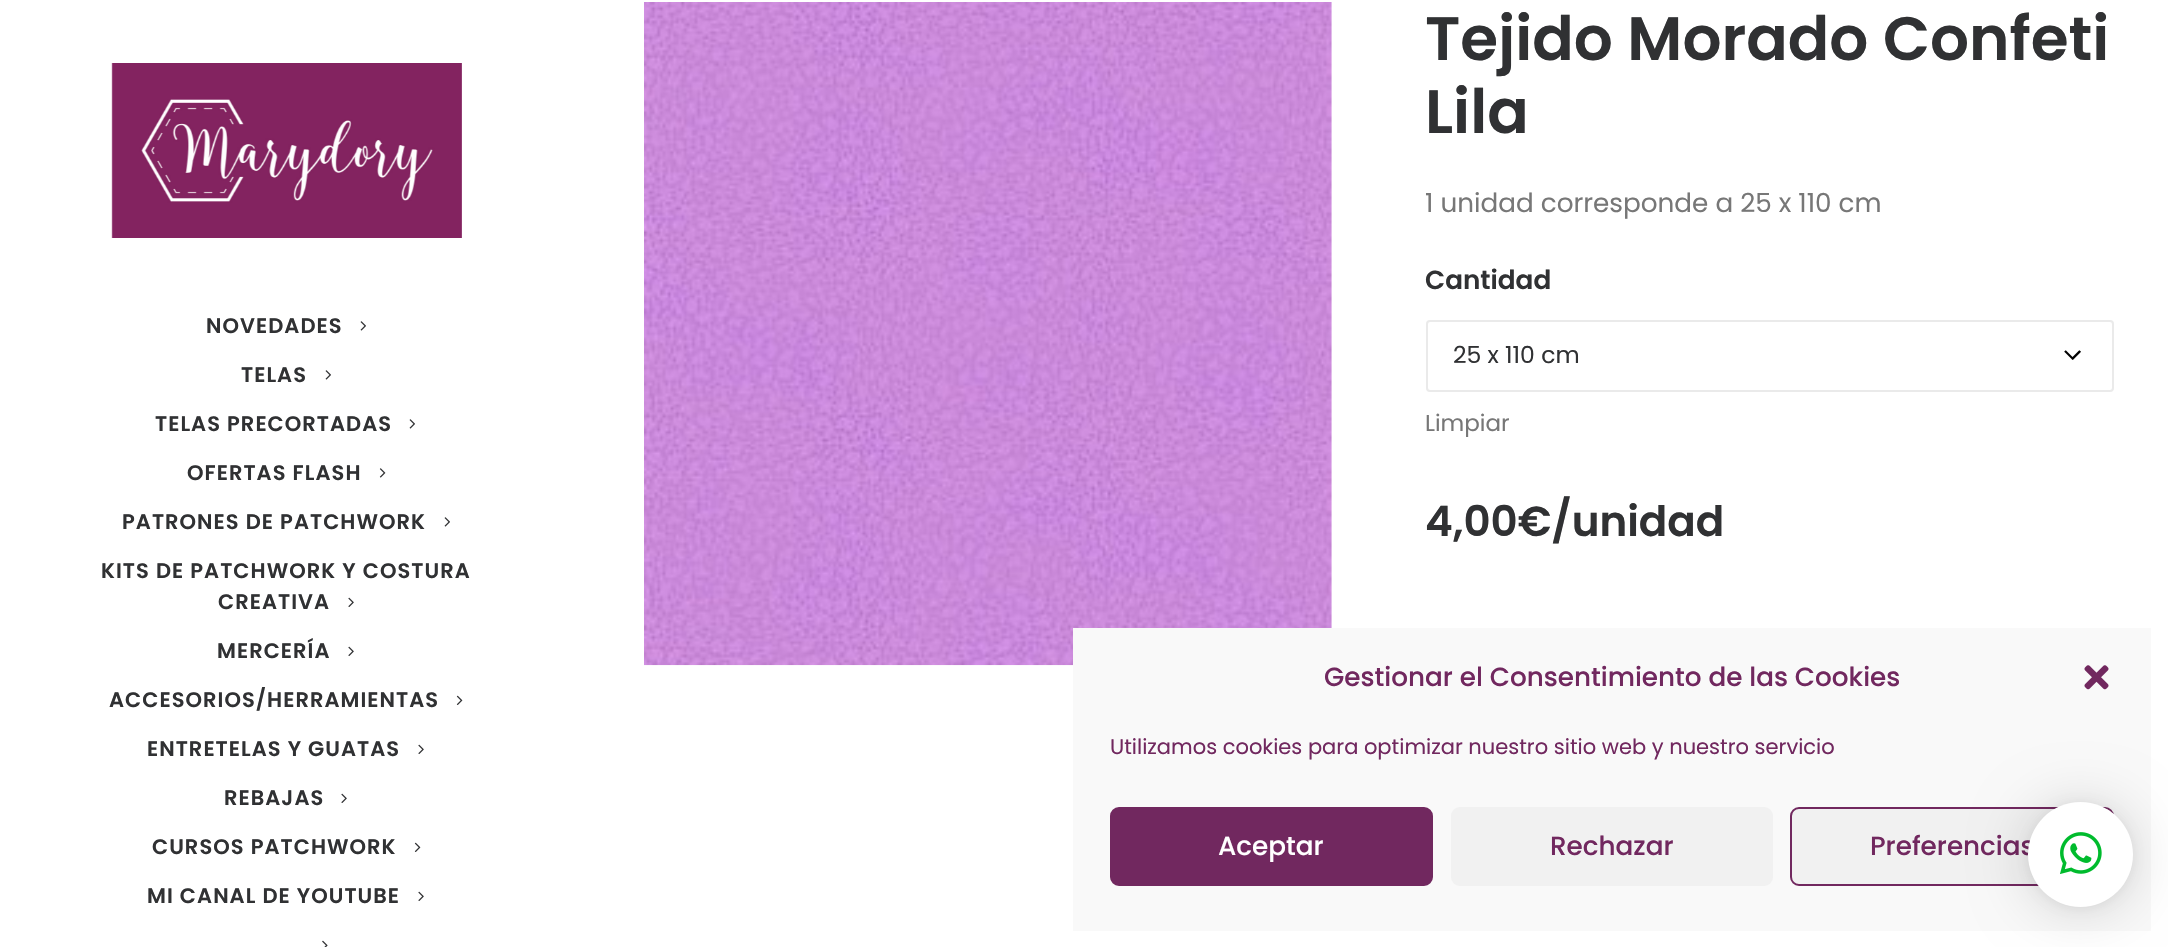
void draw(SkCanvas* c) {
SkPaint p;
p.setAntiAlias(true);
auto F=[&](const char* family, int weight, float size, bool italic = false){SkFontStyle style(weight, SkFontStyle::kNormal_Width,italic ? SkFontStyle::kItalic_Slant : SkFontStyle::kUpright_Slant);SkFont result(fontMgr->matchFamilyStyle(family, style), size);result.setSubpixel(true);return result;};
auto T=[&](const char* s, float x, float y, const SkFont& font){c->drawString(s, x, y, font, p);};
auto L=[&](const char* s, float x, float y, const SkFont& font, const SkPaint& ink, float letter, float word){std::vector<SkGlyphID> glyphs(font.countText(s, strlen(s), SkTextEncoding::kUTF8));std::vector<float> xs(glyphs.size());font.textToGlyphs(s, strlen(s), SkTextEncoding::kUTF8, glyphs);font.getXPos(glyphs, xs, x);float extra = 0;for (size_t i = 0; i < glyphs.size(); i++) {xs[i] += extra;extra += letter + word * (glyphs[i] == font.unicharToGlyph(' '));}c->drawTextBlob(SkTextBlob::MakeFromPosHGlyphs(glyphs, xs, y, font), 0, 0, ink);};
auto R=[&](float x, float y, float w, float h){c->drawRect(SkRect::MakeXYWH(x, y, w, h), p);};
auto Q=[&](float x, float y, float w, float h, float radius){c->drawRoundRect(SkRect::MakeXYWH(x, y, w, h), radius, radius, p);};
auto I=[&](const char* path, float x, float y, float w, float h){auto image = SkImages::DeferredFromEncodedData(SkData::MakeFromFileName(path));c->drawImageRect(image, SkRect::MakeXYWH(x, y, w, h), SkSamplingOptions());};
c->clear(0xffffffff);
I("1.png",111,63,351,175);
auto f1 = F("Poppins",600,21);
p.setColor(0xff303133);
L("NOVEDADES",206,333,f1,p,1.05,0);
I("2.png",360,321,6,10);
L("TELAS",241,382,f1,p,1.05,0);
I("2.png",325,370,6,10);
L("TELAS PRECORTADAS",155,431,f1,p,1.05,0);
I("2.png",409,419,6,10);
L("OFERTAS FLASH",187,480,f1,p,1.05,0);
I("3.png",379,468,7,10);
L("PATRONES DE PATCHWORK",122,529,f1,p,1.05,0);
I("2.png",444,517,6,10);
L("KITS DE PATCHWORK Y COSTURA",101,578,f1,p,1.05,0);
L("CREATIVA",218,609,f1,p,1.05,0);
I("4.png",348,597,6,10);
L("MERCERÍA",217,658,f1,p,1.05,0);
I("4.png",348,646,6,10);
L("ACCESORIOS/HERRAMIENTAS",109,707,f1,p,1.05,0);
I("5.png",456,695,7,10);
L("ENTRETELAS Y GUATAS",147,756,f1,p,1.05,0);
I("4.png",418,744,6,10);
L("REBAJAS",224,805,f1,p,1.05,0);
I("4.png",341,793,6,10);
L("CURSOS PATCHWORK",152,854,f1,p,1.05,0);
I("5.png",414,842,7,10);
L("MI CANAL DE YOUTUBE",147,903,f1,p,1.05,0);
I("4.png",418,891,6,10);
I("6.png",322,940,6,7);
I("7.png",644,2,688,664);
auto f2 = F("Poppins",600,61.25);
T("Tejido Morado Confeti",1425,60,f2);
T("Lila",1425,133,f2);
auto f3 = F("Poppins",400,26.25);
p.setColor(0xff777777);
T("1 unidad corresponde a 25 x 110 cm",1425,212,f3);
auto f4 = F("Poppins",600,26.25);
p.setColor(0xff303133);
T("Cantidad",1425,289,f4);
I("8.png",2064,350,17,10);
p.setStroke(true);
p.setStrokeWidth(2);
p.setColor(0xffeaeaea);
c->drawRoundRect(SkRect::MakeXYWH(1427,321,686,70),3,3,p);
auto f5 = F("Poppins",400,23.5);
p.setStroke(false);
p.setColor(0xff303133);
T("25 x 110 cm",1453,363,f5);
auto f6 = F("Poppins",400,23);
p.setColor(0xff777777);
T("Limpiar",1425,431,f6);
auto f7 = F("Poppins",600,42);
p.setColor(0xff303133);
T("4,00€/unidad",1425,536,f7);
p.setColor(0xfff9f9f9);
R(1073,628,1078,303);
auto f8 = F("Poppins",500,26.25);
p.setColor(0xff71285f);
T("Gestionar el Consentimiento de las Cookies",1324,686,f8);
I("9.png",2084,665,25,25);
auto f9 = F("Poppins",400,21);
T("Utilizamos cookies para optimizar nuestro sitio web y nuestro servicio",1110,754,f9);
c->drawRoundRect(SkRect::MakeXYWH(1111,808,321,77),8,8,p);
p.setStroke(true);
c->drawRoundRect(SkRect::MakeXYWH(1111,808,321,77),8,8,p);
p.setStroke(false);
p.setColor(0xffffffff);
T("Aceptar",1218,855,f8);
p.setColor(0xfff1f1f1);
Q(1451,807,322,79,9);
p.setColor(0xff71285f);
T("Rechazar",1550,855,f8);
p.setColor(0xfff1f1f1);
c->drawRoundRect(SkRect::MakeXYWH(1791,808,322,77),8,8,p);
p.setStroke(true);
p.setColor(0xff71285f);
c->drawRoundRect(SkRect::MakeXYWH(1791,808,322,77),8,8,p);
p.setStroke(false);
T("Preferencias",1870,855,f8);
p.setColor(0x29000000);
p.setMaskFilter(SkMaskFilter::MakeBlur(kNormal_SkBlurStyle, 28));
c->drawRoundRect(SkRect::MakeXYWH(2028,805,105,105),52.5,52.5,p);
p.setMaskFilter(nullptr);
p.setColor(0x0f000000);
p.setMaskFilter(SkMaskFilter::MakeBlur(kNormal_SkBlurStyle, 5));
c->drawRoundRect(SkRect::MakeXYWH(2028,803,105,105),52.5,52.5,p);
p.setMaskFilter(nullptr);
p.setColor(0xffffffff);
c->drawCircle(2080.5,854.5,52.5,p);
I("10.png",2060,832,42,42);
}
